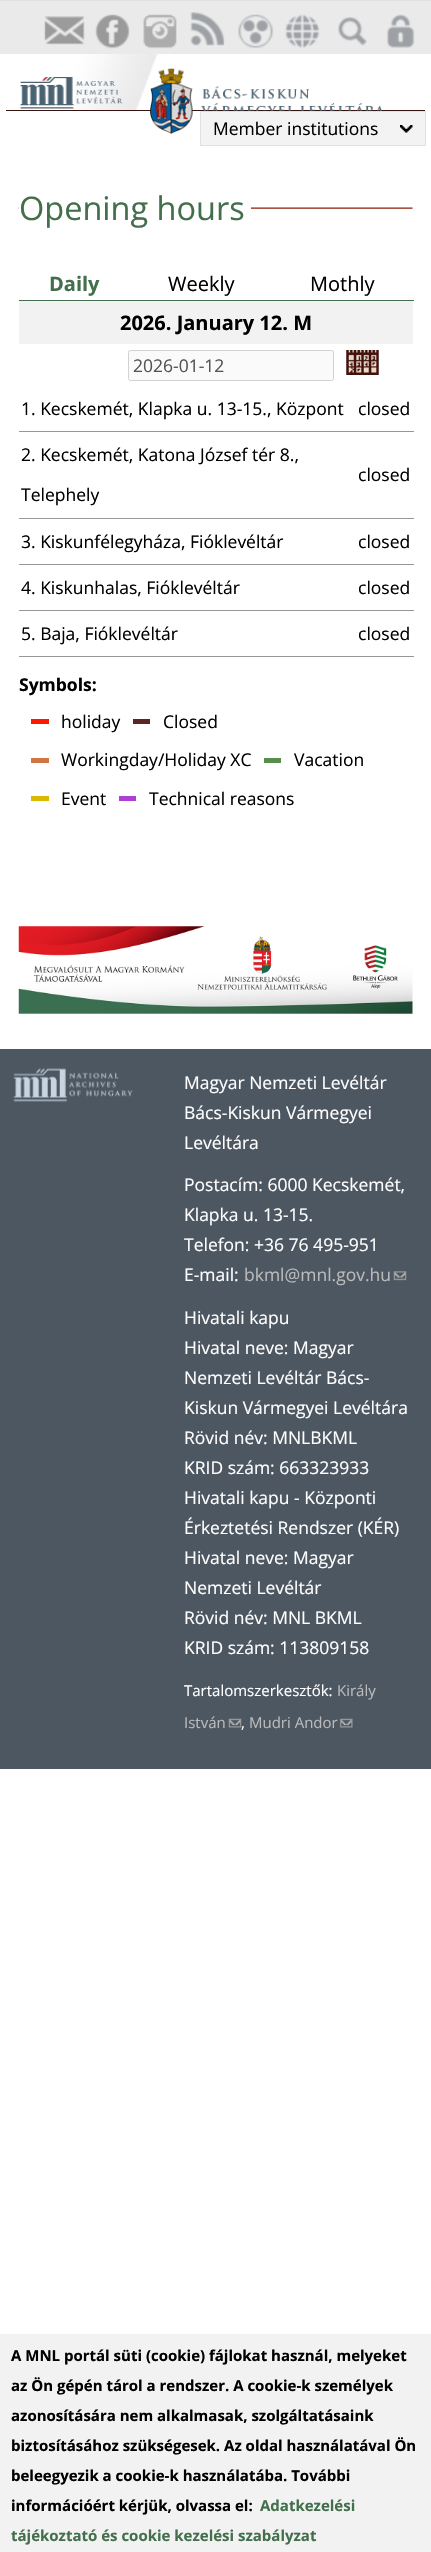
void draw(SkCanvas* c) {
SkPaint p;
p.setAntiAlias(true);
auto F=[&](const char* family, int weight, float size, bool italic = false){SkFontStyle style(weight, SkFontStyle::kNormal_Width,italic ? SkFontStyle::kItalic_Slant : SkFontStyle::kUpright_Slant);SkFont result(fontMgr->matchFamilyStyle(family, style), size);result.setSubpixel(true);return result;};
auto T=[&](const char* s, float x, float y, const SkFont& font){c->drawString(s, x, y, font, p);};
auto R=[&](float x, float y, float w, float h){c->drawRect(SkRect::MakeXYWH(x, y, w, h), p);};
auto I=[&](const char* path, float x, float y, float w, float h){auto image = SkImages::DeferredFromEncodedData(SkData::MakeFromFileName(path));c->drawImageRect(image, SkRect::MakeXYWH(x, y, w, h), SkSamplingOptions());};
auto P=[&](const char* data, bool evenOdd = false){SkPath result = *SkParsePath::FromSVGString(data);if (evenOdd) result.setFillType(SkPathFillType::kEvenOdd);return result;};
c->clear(0xffffffff);
c->save();
c->clipPath(P("M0 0h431v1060h-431zm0 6h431v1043h-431z",true),true);
p.setColor(0xffa3a3a3);
p.setMaskFilter(SkMaskFilter::MakeBlur(kNormal_SkBlurStyle, 5));
c->drawRect(SkRect::MakeXYWH(3,11,421,1033),p);
p.setMaskFilter(nullptr);
c->restore();
c->save();
c->clipPath(P("M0 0h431v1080h-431zm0 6h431v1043h-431z",true),true);
p.setMaskFilter(SkMaskFilter::MakeBlur(kNormal_SkBlurStyle, 9.5));
c->drawRect(SkRect::MakeXYWH(8,18,421,1032),p);
p.setMaskFilter(nullptr);
c->restore();
p.setColor(0xffeaeaea);
R(0,1,431,53);
p.setColor(0xffe1e1e1);
R(0,0,431,1);
I("1.png",74,54,84,58);
p.setColor(0xff36130f);
R(6,110,419,1);
I("2.png",44,16,41,29);
I("3.png",95,14,35,35);
I("4.png",143,14,34,35);
I("5.png",190,12,35,34);
I("6.png",238,14,36,35);
I("7.png",285,14,35,34);
I("8.png",338,17,29,29);
I("9.png",386,14,29,35);
I("10.png",19,77,104,32);
I("11.png",150,68,233,66);
p.setColor(0xfff3f3f3);
R(201,112,224,33);
I("12.png",400,125,13,8);
p.setStroke(true);
p.setStrokeWidth(1);
p.setColor(0xffe1e1e1);
c->drawRect(SkRect::MakeXYWH(200.5,111.5,225,34),p);
auto f1 = F("Open Sans",400,17.5);
p.setStroke(false);
p.setColor(0xff000000);
T("Member institutions",213,135,f1);
I("13.png",18,207,395,2);
p.setColor(0xffffffff);
R(19,207,232,2);
auto f2 = F("Open Sans",400,32.5);
p.setColor(0xff436f4d);
T("Opening hours",19,220,f2);
R(19,300,395,1);
auto f3 = F("Open Sans",700,20);
T("Daily",49,291,f3);
auto f4 = F("Open Sans",400,20);
p.setColor(0xff000000);
T("Weekly",168,291,f4);
T("Mothly",310,291,f4);
p.setColor(0xfff2f2f2);
R(19,301,394,43);
p.setColor(0xff000000);
T("2026. January 12. M",120,330,f3);
p.setColor(0xfffafafa);
c->drawRoundRect(SkRect::MakeXYWH(128.5,350.5,205,30),2,2,p);
p.setStroke(true);
p.setColor(0xffd2d2d2);
c->drawRoundRect(SkRect::MakeXYWH(128.5,350.5,205,30),2,2,p);
p.setStroke(false);
p.setColor(0xff545454);
T("2026-01-12",133,372,f1);
I("14.png",346,350,33,25);
p.setColor(0xff979797);
R(19,431,395,1);
p.setColor(0xff000000);
T("1. Kecskemét, Klapka u. 13-15., Központ",21,415,f1);
T("closed",358,415,f1);
p.setColor(0xff979797);
R(19,518,395,1);
p.setColor(0xff000000);
T("2. Kecskemét, Katona József tér 8.,",21,461,f1);
T("Telephely",21,501,f1);
T("closed",358,481,f1);
p.setColor(0xff979797);
R(19,564,395,1);
p.setColor(0xff000000);
T("3. Kiskunfélegyháza, Fióklevéltár",21,548,f1);
T("closed",358,548,f1);
p.setColor(0xff979797);
R(19,610,395,1);
p.setColor(0xff000000);
T("4. Kiskunhalas, Fióklevéltár",21,594,f1);
T("closed",358,594,f1);
p.setColor(0xff979797);
R(19,656,395,1);
p.setColor(0xff000000);
T("5. Baja, Fióklevéltár",21,640,f1);
T("closed",358,640,f1);
auto f5 = F("Open Sans",700,17.5);
T("Symbols:",19,691,f5);
p.setColor(0xfffe1800);
R(31,719,18,5);
p.setColor(0xff000000);
T("holiday",61,728,f1);
p.setColor(0xff5a2720);
R(133,719,17,5);
p.setColor(0xff000000);
T("Closed",163,728,f1);
p.setColor(0xffd27544);
R(31,758,18,5);
p.setColor(0xff000000);
T("Workingday/Holiday XC",61,766,f1);
p.setColor(0xff598d4c);
R(264,758,17,5);
p.setColor(0xff000000);
T("Vacation",294,766,f1);
p.setColor(0xffd9ba00);
R(31,796,18,5);
p.setColor(0xff000000);
T("Event",61,805,f1);
p.setColor(0xffaf3ed4);
R(119,796,17,5);
p.setColor(0xff000000);
T("Technical reasons",149,805,f1);
I("15.png",18,926,395,88);
p.setColor(0xff4d5762);
R(0,1049,431,720);
I("16.png",13,1068,120,34);
p.setColor(0xffffffff);
T("Magyar Nemzeti Levéltár",184,1089,f1);
T("Bács-Kiskun Vármegyei",184,1119,f1);
T("Levéltára",184,1149,f1);
T("Postacím: 6000 Kecskemét,",184,1191,f1);
T("Klapka u. 13-15.",184,1221,f1);
T("Telefon: +36 76 495-951",184,1251,f1);
T("E-mail:",184,1281,f1);
p.setColor(0xffbbbaba);
T("bkml@mnl.gov.hu",244,1281,f1);
I("17.png",393,1271,14,10);
p.setColor(0xffffffff);
T("Hivatali kapu",184,1324,f1);
T("Hivatal neve: Magyar",184,1354,f1);
T("Nemzeti Levéltár Bács-",184,1384,f1);
T("Kiskun Vármegyei Levéltára",184,1414,f1);
T("Rövid név: MNLBKML",184,1444,f1);
T("KRID szám: 663323933",184,1474,f1);
T("Hivatali kapu - Központi",184,1504,f1);
T("Érkeztetési Rendszer (KÉR)",184,1534,f1);
T("Hivatal neve: Magyar",184,1564,f1);
T("Nemzeti Levéltár",184,1594,f1);
T("Rövid név: MNL BKML",184,1624,f1);
T("KRID szám: 113809158",184,1654,f1);
auto f6 = F("Open Sans",400,15);
T("Tartalomszerkesztők:",184,1696,f6);
p.setColor(0xffbbbaba);
T("Király",337,1696,f6);
T("István",184,1728,f6);
I("18.png",228,1718,14,10);
p.setColor(0xffffffff);
T(",",241,1728,f6);
p.setColor(0xffbbbaba);
T("Mudri Andor",249,1728,f6);
I("19.png",339,1718,14,10);
p.setColor(0xfff2f2f2);
R(0,2334,431,218);
auto f7 = F("Open Sans",700,15);
p.setColor(0xff000000);
T("A MNL portál süti (cookie) fájlokat használ, melyeket",11,2361,f7);
T("az Ön gépén tárol a rendszer. A cookie-k személyek",11,2391,f7);
T("azonosítására nem alkalmasak, szolgáltatásaink",11,2421,f7);
T("biztosításához szükségesek. Az oldal használatával Ön",11,2451,f7);
T("beleegyezik a cookie-k használatába. További",11,2481,f7);
T("információért kérjük, olvassa el:",11,2511,f7);
p.setColor(0xff436f4d);
T("Adatkezelési",260,2511,f7);
T("tájékoztató és cookie kezelési szabályzat",11,2541,f7);
}
